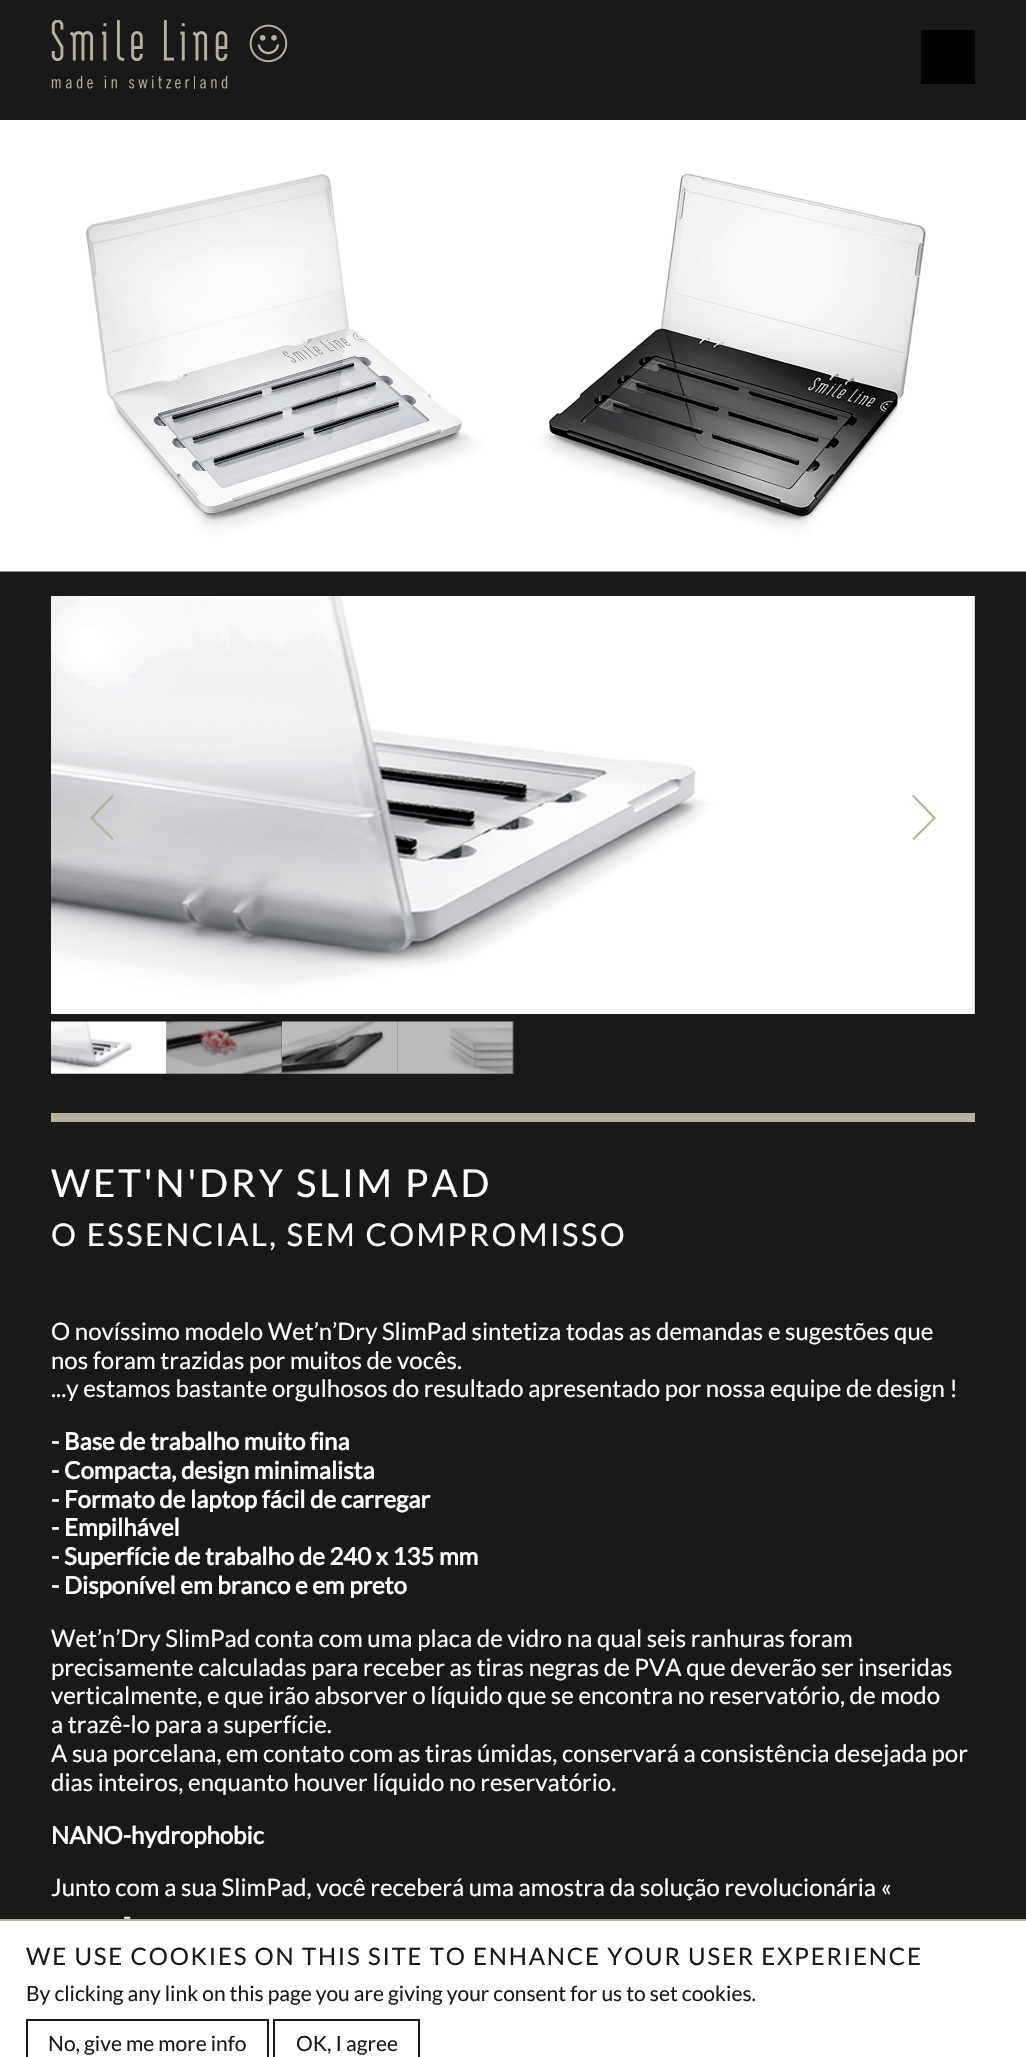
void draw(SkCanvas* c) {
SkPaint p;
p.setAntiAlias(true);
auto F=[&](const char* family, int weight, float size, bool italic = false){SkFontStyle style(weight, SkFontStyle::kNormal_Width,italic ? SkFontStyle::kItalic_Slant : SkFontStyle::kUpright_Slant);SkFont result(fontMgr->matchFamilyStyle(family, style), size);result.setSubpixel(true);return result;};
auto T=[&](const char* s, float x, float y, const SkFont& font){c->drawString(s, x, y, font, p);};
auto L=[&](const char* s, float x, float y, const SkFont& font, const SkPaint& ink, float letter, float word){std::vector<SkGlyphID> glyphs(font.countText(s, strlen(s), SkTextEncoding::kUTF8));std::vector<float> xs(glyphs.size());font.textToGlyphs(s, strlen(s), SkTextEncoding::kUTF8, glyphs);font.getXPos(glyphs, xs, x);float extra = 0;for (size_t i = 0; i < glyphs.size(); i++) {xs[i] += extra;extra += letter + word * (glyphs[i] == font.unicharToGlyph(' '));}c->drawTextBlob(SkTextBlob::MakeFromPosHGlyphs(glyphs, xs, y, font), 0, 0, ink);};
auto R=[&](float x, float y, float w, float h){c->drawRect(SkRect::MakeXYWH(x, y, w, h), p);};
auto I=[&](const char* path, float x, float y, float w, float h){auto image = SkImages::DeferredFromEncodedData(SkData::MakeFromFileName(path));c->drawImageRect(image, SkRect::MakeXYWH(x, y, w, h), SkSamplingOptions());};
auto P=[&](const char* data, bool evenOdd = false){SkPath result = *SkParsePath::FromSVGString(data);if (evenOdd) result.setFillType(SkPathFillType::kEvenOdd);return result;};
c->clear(0xff191919);
I("1.png",51,20,237,69);
p.setColor(0xff000000);
R(921,30,54,54);
I("2.png",0,120,1026,452);
I("3.png",51,596,924,418);
p.setColor(0xffb8b09b);
c->drawPath(P("M112 795l2 1l-21 22l21 21l-2 1l-22-22z"),p);
c->drawPath(P("M914 840l-2-1l21-21l-21-22l2-1l22 23z"),p);
I("4.png",51,1021,116,53);
I("5.png",166,1021,117,53);
I("6.png",282,1021,116,53);
I("7.png",397,1021,117,53);
R(51,1113,924,9);
auto f1 = F("Lato",400,38.4);
p.setColor(0xffffffff);
L("WET'N'DRY SLIM PAD",51,1197,f1,p,2.9,0);
auto f2 = F("Lato",400,31.25);
L("O ESSENCIAL, SEM COMPROMISSO",51,1246,f2,p,2.35,0);
auto f3 = F("Lato",400,24);
T("O novíssimo modelo Wet’n’Dry SlimPad sintetiza todas as demandas e sugestões que",51,1340,f3);
T("nos foram trazidas por muitos de vocês.",51,1369,f3);
T("...y estamos bastante orgulhosos do resultado apresentado por nossa equipe de design !",51,1397,f3);
auto f4 = F("Lato",700,24);
T("- Base de trabalho muito fina",51,1450,f4);
T("- Compacta, design minimalista",51,1479,f4);
T("- Formato de laptop fácil de carregar",51,1508,f4);
T("- Empilhável",51,1536,f4);
T("- Superfície de trabalho de 240 x 135 mm",51,1565,f4);
T("- Disponível em branco e em preto",51,1594,f4);
T("Wet’n’Dry SlimPad conta com uma placa de vidro na qual seis ranhuras foram",51,1647,f3);
T("precisamente calculadas para receber as tiras negras de PVA que deverão ser inseridas",51,1676,f3);
T("verticalmente, e que irão absorver o líquido que se encontra no reservatório, de modo",51,1704,f3);
T("a trazê-lo para a superfície.",51,1733,f3);
T("A sua porcelana, em contato com as tiras úmidas, conservará a consistência desejada por",51,1762,f3);
T("dias inteiros, enquanto houver líquido no reservatório.",51,1791,f3);
T("NANO-hydrophobic",51,1844,f4);
T("Junto com a sua SlimPad, você receberá uma amostra da solução revolucionária «",51,1896,f3);
T("-",123,1925,f3);
R(0,1921,1026,136);
p.setColor(0xffb8b09b);
R(0,1919,1026,2);
p.setColor(0xff191919);
L("WE USE COOKIES ON THIS SITE TO ENHANCE YOUR USER EXPERIENCE",26,1965,f3,p,1.8,0);
auto f5 = F("Lato",400,21);
T("By clicking any link on this page you are giving your consent for us to set cookies.",26,2001,f5);
p.setStroke(true);
p.setStrokeWidth(2);
c->drawRect(SkRect::MakeXYWH(27,2020,241,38),p);
p.setStroke(false);
T("No, give me more info",48,2051,f5);
p.setStroke(true);
c->drawRect(SkRect::MakeXYWH(274,2020,145,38),p);
p.setStroke(false);
T("OK, I agree",296,2051,f5);
}
